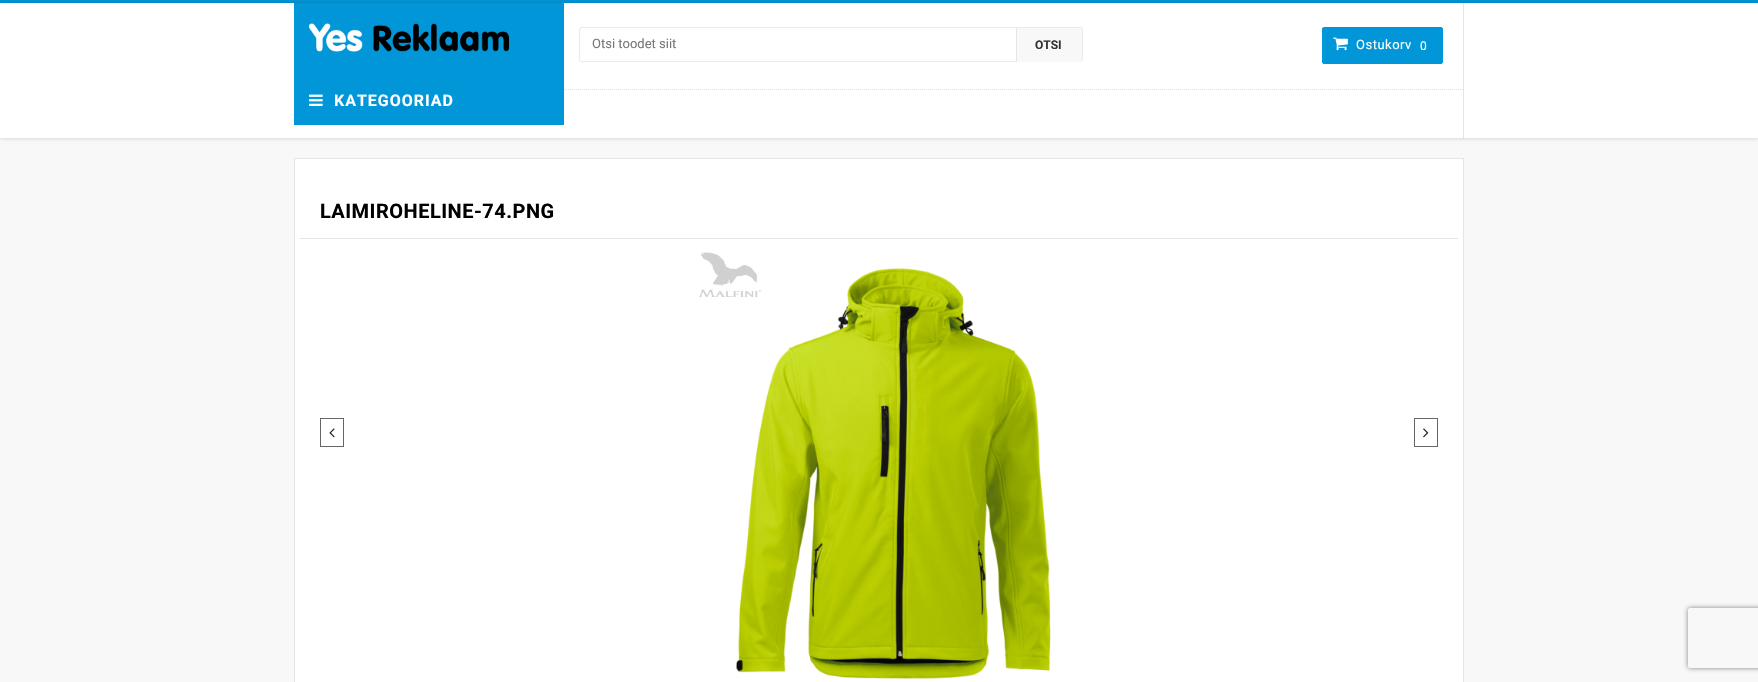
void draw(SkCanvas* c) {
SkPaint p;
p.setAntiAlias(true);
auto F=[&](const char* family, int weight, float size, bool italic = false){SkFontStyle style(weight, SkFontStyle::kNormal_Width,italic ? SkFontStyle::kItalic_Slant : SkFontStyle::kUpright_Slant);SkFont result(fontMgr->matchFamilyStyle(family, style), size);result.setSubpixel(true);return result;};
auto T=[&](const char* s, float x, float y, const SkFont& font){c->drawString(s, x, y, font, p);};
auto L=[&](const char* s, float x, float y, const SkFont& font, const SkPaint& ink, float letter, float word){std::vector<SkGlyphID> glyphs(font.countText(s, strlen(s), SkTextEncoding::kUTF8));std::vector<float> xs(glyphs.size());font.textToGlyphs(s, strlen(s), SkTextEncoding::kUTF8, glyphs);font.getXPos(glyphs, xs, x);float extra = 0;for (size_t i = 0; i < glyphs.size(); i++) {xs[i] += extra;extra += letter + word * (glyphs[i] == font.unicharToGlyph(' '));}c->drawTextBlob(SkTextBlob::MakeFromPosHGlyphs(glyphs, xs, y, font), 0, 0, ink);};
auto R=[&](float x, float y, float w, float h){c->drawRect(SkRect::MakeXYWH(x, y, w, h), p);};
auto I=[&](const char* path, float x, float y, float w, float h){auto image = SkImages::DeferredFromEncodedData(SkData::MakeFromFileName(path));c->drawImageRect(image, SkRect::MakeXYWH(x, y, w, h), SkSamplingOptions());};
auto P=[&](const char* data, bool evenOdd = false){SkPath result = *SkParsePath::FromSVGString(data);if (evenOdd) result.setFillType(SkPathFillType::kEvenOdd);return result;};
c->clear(0xfff8f8f8);
p.setColor(0xff0096d7);
R(0,0,1758,3);
p.setColor(0x33000000);
p.setMaskFilter(SkMaskFilter::MakeBlur(kNormal_SkBlurStyle, 2));
c->drawRect(SkRect::MakeXYWH(0,3,1758,135),p);
p.setMaskFilter(nullptr);
p.setColor(0xffffffff);
R(0,3,1758,135);
p.setColor(0xffe5e5e5);
R(1463,3,1,135);
p.setStroke(true);
p.setStrokeWidth(1);
p.setColor(0xffeaeaea);
c->drawRoundRect(SkRect::MakeXYWH(579.5,27.5,503,34),2.5,2.5,p);
auto f1 = F("Roboto",400,13);
p.setStroke(false);
p.setColor(0xff777777);
T("Otsi toodet siit",592,48,f1);
p.setColor(0xfff8f8f8);
c->drawPath(P("M1016 28h64c1 0 2 1 2 2v30c0 1-1 2-2 2h-64z"),p);
p.setColor(0xffe5e5e5);
R(1016,28,1,34);
auto f2 = F("Roboto",700,12);
p.setColor(0xff333333);
T("OTSI",1035,49,f2);
p.setColor(0xff0096d7);
c->drawRoundRect(SkRect::MakeXYWH(1322.5,27.5,120,36),1.5,1.5,p);
p.setStroke(true);
c->drawRoundRect(SkRect::MakeXYWH(1322.5,27.5,120,36),1.5,1.5,p);
I("1.png",1333,37,15,14);
p.setStroke(false);
p.setColor(0xffffffff);
L("Ostukorv",1356,49,f1,p,.5,0);
auto f3 = F("Roboto",400,12);
L("0",1420,50,f3,p,.5,0);
p.setStroke(true);
p.setColor(0xffdddddd);
p.setPathEffect(SkDashPathEffect::Make({{1,1}}, 0));
c->drawPath(P("M564 89.5h899"),p);
p.setPathEffect(nullptr);
p.setStroke(false);
p.setColor(0xff0096d7);
R(294,3,270,122);
I("2.png",309,23,200,29);
I("3.png",309,94,14,12);
auto f4 = F("Roboto",700,16);
p.setColor(0xffffffff);
L("KATEGOORIAD",334,106,f4,p,1,0);
c->drawRect(SkRect::MakeXYWH(294.5,158.5,1169,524),p);
p.setStroke(true);
p.setColor(0xffe5e5e5);
c->drawRect(SkRect::MakeXYWH(294.5,158.5,1169,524),p);
p.setStroke(false);
R(300,238,1158,1);
auto f5 = F("Roboto",700,20);
p.setColor(0xff000000);
L("LAIMIROHELINE-74.PNG",320,218,f5,p,.5,0);
I("4.png",699,252,352,427);
p.setStroke(true);
p.setColor(0xff666666);
c->drawRect(SkRect::MakeXYWH(320.5,418.5,23,28),p);
I("5.png",329,428,6,10);
c->drawRect(SkRect::MakeXYWH(1414.5,418.5,23,28),p);
I("6.png",1423,428,6,10);
c->save();
c->clipPath(P("M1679 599h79v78h-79zm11 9h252c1 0 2 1 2 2v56c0 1-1 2-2 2h-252c-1 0-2-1-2-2v-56c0-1 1-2 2-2z",true),true);
p.setStroke(false);
p.setColor(0xff808080);
p.setMaskFilter(SkMaskFilter::MakeBlur(kNormal_SkBlurStyle, 2.5));
c->drawRoundRect(SkRect::MakeXYWH(1688,608,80,60),2,2,p);
p.setMaskFilter(nullptr);
c->restore();
}
